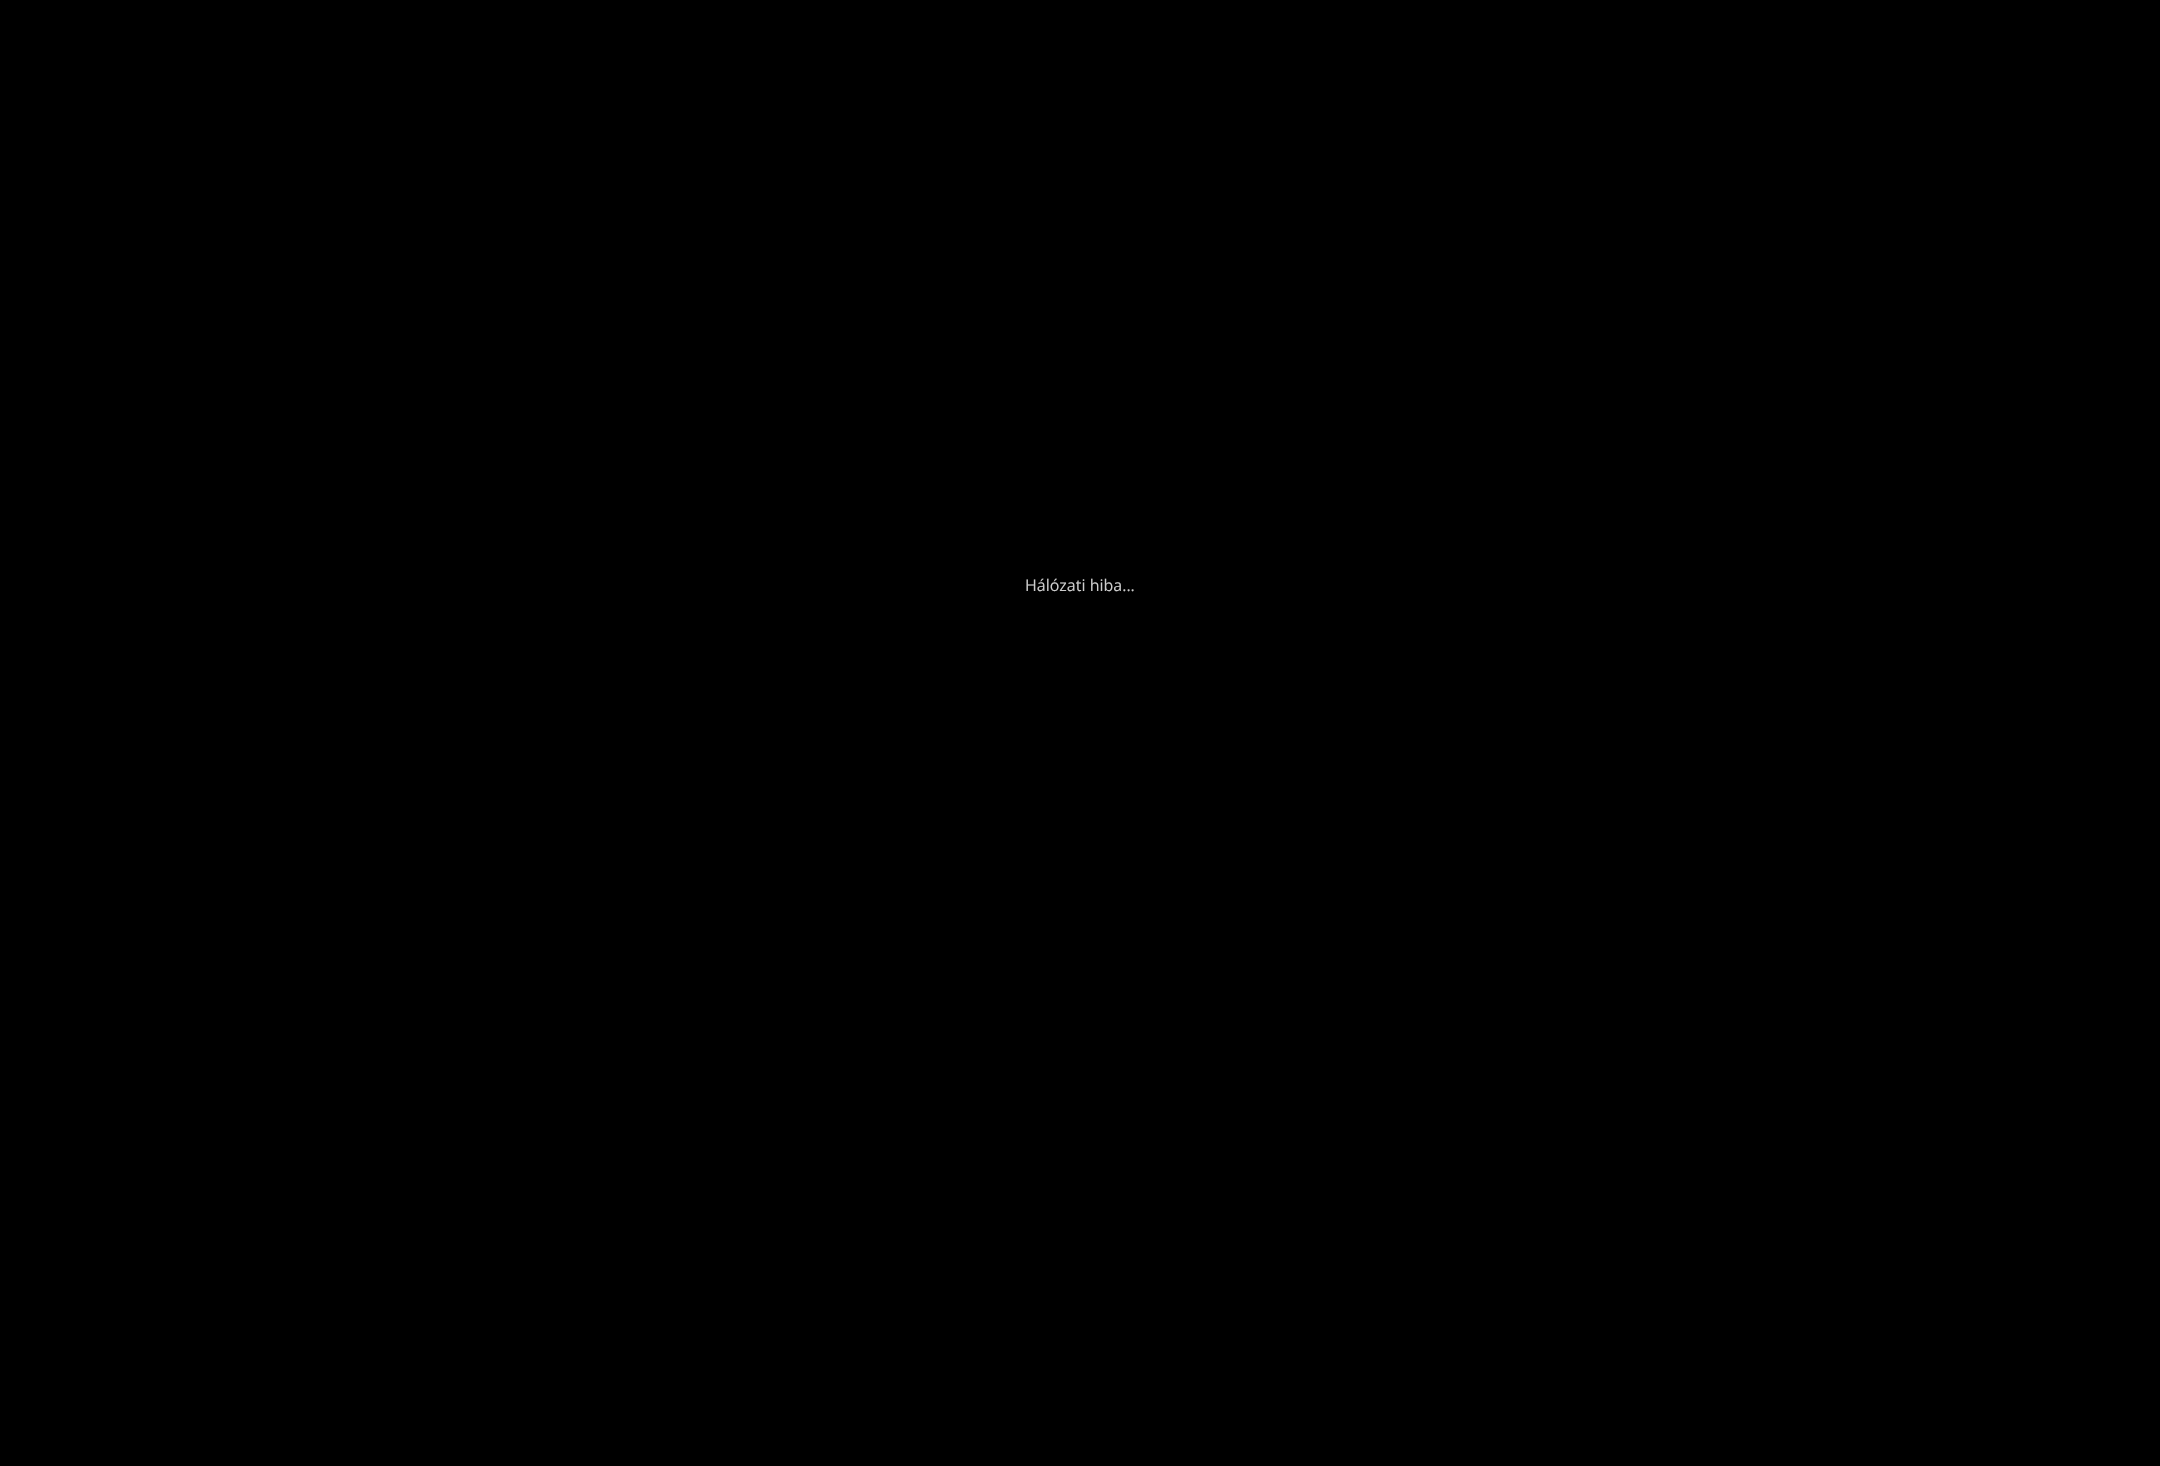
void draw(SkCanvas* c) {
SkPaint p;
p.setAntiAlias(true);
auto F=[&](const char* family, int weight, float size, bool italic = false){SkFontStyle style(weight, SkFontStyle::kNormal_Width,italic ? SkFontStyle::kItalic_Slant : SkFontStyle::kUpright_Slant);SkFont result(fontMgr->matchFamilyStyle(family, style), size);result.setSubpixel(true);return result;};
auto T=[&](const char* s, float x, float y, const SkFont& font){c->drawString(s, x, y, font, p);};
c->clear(0xff000000);
auto f1 = F("Open Sans",400,16);
p.setColor(0xffcccccc);
T("Hálózati hiba...",1025,591,f1);
}
